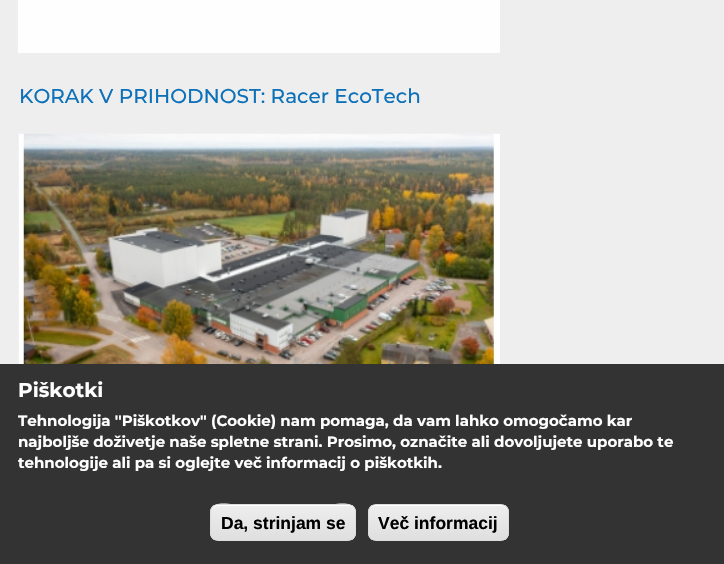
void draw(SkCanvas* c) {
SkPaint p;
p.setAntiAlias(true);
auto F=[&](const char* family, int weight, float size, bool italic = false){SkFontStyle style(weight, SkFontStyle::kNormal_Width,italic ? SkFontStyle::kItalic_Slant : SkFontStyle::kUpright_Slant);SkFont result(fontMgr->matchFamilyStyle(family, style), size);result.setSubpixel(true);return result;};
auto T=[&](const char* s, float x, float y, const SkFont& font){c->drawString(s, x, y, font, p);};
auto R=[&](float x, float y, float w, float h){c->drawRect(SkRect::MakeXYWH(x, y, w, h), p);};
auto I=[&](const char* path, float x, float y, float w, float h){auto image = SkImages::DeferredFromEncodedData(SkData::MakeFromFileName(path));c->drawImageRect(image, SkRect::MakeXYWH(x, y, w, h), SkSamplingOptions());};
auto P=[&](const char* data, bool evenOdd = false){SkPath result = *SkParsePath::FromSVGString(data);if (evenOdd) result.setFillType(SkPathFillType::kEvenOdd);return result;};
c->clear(0xffeeeeee);
p.setColor(0xfffefefe);
R(18,0,482,53);
auto f1 = F("Montserrat",500,20);
p.setColor(0xff0d71b9);
T("KORAK V PRIHODNOST: Racer EcoTech",19,103,f1);
I("1.png",18,133,482,231);
p.setColor(0xff333333);
R(0,364,724,200);
auto f2 = F("Montserrat",700,20);
p.setColor(0xffffffff);
T("Piškotki",18,397,f2);
auto f3 = F("Montserrat",700,15);
T("Tehnologija ''Piškotkov'' (Cookie) nam pomaga, da vam lahko omogočamo kar",18,426,f3);
T("najboljše doživetje naše spletne strani. Prosimo, označite ali dovoljujete uporabo te",18,447,f3);
T("tehnologije ali pa si oglejte več informacij o piškotkih.",18,468,f3);
c->save();
c->clipPath(P("M218 504h130c4.5 0 8 3.5 8 8v21c0 4.5-3.5 8-8 8h-130c-4.5 0-8-3.5-8-8v-21c0-4.5 3.5-8 8-8z"),true);
{
const SkColor colors[] = {0xffededed,0xffdfdfdf};
const float stops[] = {.05,1};
const SkPoint ends[] = {{211,505}, {211,540}};
p.setShader(SkGradientShader::MakeLinear(ends, colors, stops, 2, SkTileMode::kClamp));
p.setAlpha(255);
}
R(210,505,146,35);
c->restore();
p.setShader(nullptr);
p.setColor(0xffffffff);
c->drawPath(P("M218 506h131c3 0 6 3 6 6c0-13-23-7-28-7h-88c-5 0-28-6-28 7c0-3 3-6 7-6z"),p);
p.setStroke(true);
p.setStrokeWidth(1);
p.setColor(0xffdcdcdc);
c->drawRoundRect(SkRect::MakeXYWH(210.5,504.5,145,36),7.5,7.5,p);
auto f4 = F("Liberation Sans",700,17.5);
p.setStroke(false);
p.setColor(0xff000000);
T("Da, strinjam se",221,529,f4);
c->save();
c->clipPath(P("M376 504h125c4.5 0 8 3.5 8 8v21c0 4.5-3.5 8-8 8h-125c-4.5 0-8-3.5-8-8v-21c0-4.5 3.5-8 8-8z"),true);
{
const SkColor colors[] = {0xffededed,0xffdfdfdf};
const float stops[] = {.05,1};
const SkPoint ends[] = {{369,505}, {369,540}};
p.setShader(SkGradientShader::MakeLinear(ends, colors, stops, 2, SkTileMode::kClamp));
p.setAlpha(255);
}
R(368,505,141,35);
c->restore();
p.setShader(nullptr);
p.setColor(0xffffffff);
c->drawPath(P("M375 506h126c4 0 7 3 7 6c0-12-22-7-27-7h-85c-5 0-27-5-27 7c0-3 3-6 6-6z"),p);
p.setStroke(true);
p.setColor(0xffdcdcdc);
c->drawRoundRect(SkRect::MakeXYWH(368.5,504.5,140,36),7.5,7.5,p);
p.setStroke(false);
p.setColor(0xff000000);
T("Več informacij",378,529,f4);
}
